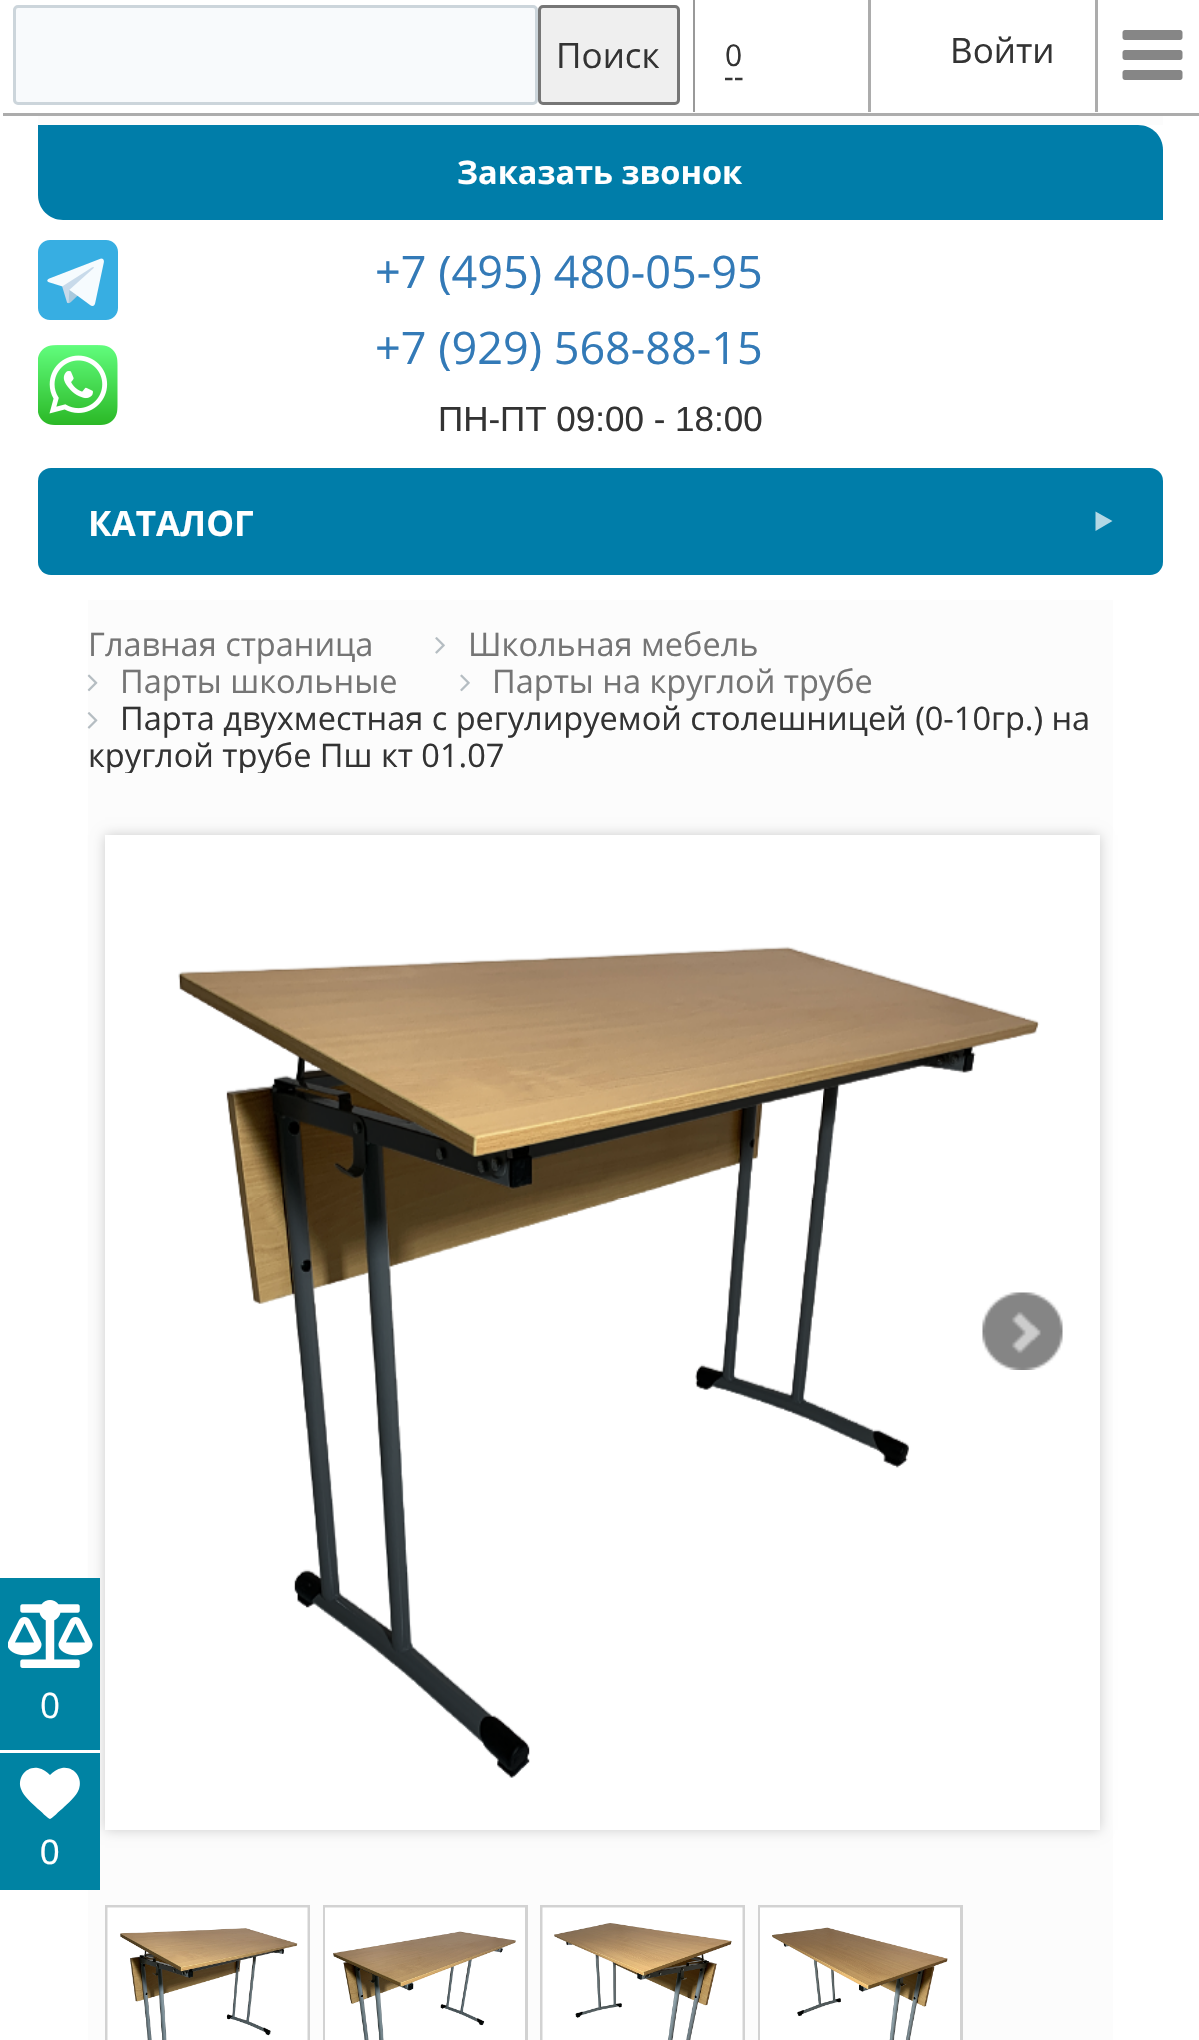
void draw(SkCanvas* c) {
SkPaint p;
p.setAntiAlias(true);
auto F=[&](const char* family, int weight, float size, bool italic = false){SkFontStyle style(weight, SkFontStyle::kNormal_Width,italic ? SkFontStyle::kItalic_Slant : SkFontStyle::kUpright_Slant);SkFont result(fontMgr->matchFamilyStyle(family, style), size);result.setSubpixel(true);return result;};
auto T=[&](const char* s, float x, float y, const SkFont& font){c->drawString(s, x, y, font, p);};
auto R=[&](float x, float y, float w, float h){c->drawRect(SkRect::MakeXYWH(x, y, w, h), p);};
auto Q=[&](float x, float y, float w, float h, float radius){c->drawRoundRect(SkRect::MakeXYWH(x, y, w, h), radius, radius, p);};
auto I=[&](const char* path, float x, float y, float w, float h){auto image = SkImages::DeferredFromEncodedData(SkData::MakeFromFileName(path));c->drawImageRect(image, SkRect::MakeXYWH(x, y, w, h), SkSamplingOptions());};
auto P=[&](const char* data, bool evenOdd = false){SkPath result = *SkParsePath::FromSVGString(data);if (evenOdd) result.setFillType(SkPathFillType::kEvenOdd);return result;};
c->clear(0xffffffff);
p.setColor(0xfffcfcfc);
R(38,116,1125,9);
p.setColor(0xffacacac);
R(3,113,1196,3);
p.setColor(0xff999999);
R(693,0,2,112);
p.setColor(0xfff8fafc);
c->drawRoundRect(SkRect::MakeXYWH(14.5,6.5,522,97),3.5,3.5,p);
p.setStroke(true);
p.setStrokeWidth(3);
p.setColor(0xffccd5db);
c->drawRoundRect(SkRect::MakeXYWH(14.5,6.5,522,97),3.5,3.5,p);
p.setStroke(false);
p.setColor(0xffefefef);
c->drawRoundRect(SkRect::MakeXYWH(539.5,6.5,139,97),3.5,3.5,p);
p.setStroke(true);
p.setColor(0xff767676);
c->drawRoundRect(SkRect::MakeXYWH(539.5,6.5,139,97),3.5,3.5,p);
auto f1 = F("Open Sans",400,35);
p.setStroke(false);
p.setColor(0xff333333);
T("Поиск",556,68,f1);
p.setColor(0xffacacac);
R(868,0,3,112);
p.setStroke(true);
p.setStrokeWidth(2.5);
p.setColor(0xff363636);
c->drawPath(P("M725 79h7.5m2.5 0h7.5"),p);
auto f2 = F("Open Sans",400,30);
p.setStroke(false);
p.setColor(0xff333333);
T("0",725,66,f2);
p.setColor(0xffacacac);
R(1095,0,3,112);
p.setColor(0xff333333);
T("Войти",950,63,f1);
p.setColor(0xff007da9);
c->drawPath(P("M38 125h1100c14 0 25 11 25 25v70h-1100c-14 0-25-11-25-25z"),p);
auto f3 = F("Open Sans",700,32.5);
p.setColor(0xffffffff);
T("Заказать звонок",457,184,f3);
I("1.png",38,240,80,80);
I("2.png",38,345,80,80);
auto f4 = F("Open Sans",400,45);
p.setColor(0xff337ab7);
T("+7 (495) 480-05-95",375,288,f4);
T("+7 (929) 568-88-15",375,364,f4);
auto f5 = F("Liberation Sans",400,35);
p.setColor(0xff333333);
T("ПН-ПТ 09:00 - 18:00",438,431,f5);
p.setColor(0xff007da9);
Q(38,468,1125,107,13);
auto f6 = F("Open Sans",700,35);
p.setColor(0xffffffff);
T("КАТАЛОГ",88,536,f6);
p.setColor(0xffb3d8e5);
c->drawPath(P("M1112.5 521l-17-9.5v19.5z"),p);
p.setColor(0xfffcfcfc);
R(88,600,1025,1440);
auto f7 = F("Open Sans",400,32.5);
p.setColor(0xff757575);
T("Главная страница",88,656,f7);
I("3.png",435,637,10,17);
T("Школьная мебель",468,656,f7);
I("4.png",87,674,11,18);
T("Парты школьные",120,693,f7);
I("5.png",460,674,10,18);
T("Парты на круглой трубе",492,693,f7);
I("6.png",87,712,11,17);
p.setColor(0xff333333);
T("Парта двухместная с регулируемой столешницей (0-10гр.) на",120,730,f7);
c->save();
c->clipRect(SkRect::MakeXYWH(50,625,1100,148));
T("круглой трубе Пш кт 01.07",88,767,f7);
c->restore();
p.setColor(0xffcccccc);
p.setMaskFilter(SkMaskFilter::MakeBlur(kNormal_SkBlurStyle, 6));
c->drawRect(SkRect::MakeXYWH(105,835,995,995),p);
p.setMaskFilter(nullptr);
p.setColor(0xffffffff);
R(105,835,995,995);
I("7.png",178,946,862,832);
I("8.png",982,1292,81,78);
p.setStroke(true);
p.setStrokeWidth(3);
p.setColor(0xffd2d2d2);
c->drawRect(SkRect::MakeXYWH(106.5,1906.5,202,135),p);
I("9.png",107,1907,201,133);
c->drawRect(SkRect::MakeXYWH(324.5,1906.5,202,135),p);
I("10.png",325,1907,200,133);
c->drawRect(SkRect::MakeXYWH(541.5,1906.5,202,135),p);
I("11.png",542,1907,201,133);
c->drawRect(SkRect::MakeXYWH(759.5,1906.5,202,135),p);
I("12.png",760,1907,200,133);
I("13.png",1122,30,61,50);
p.setStroke(false);
p.setColor(0xff0083a3);
R(0,1578,100,172);
I("14.png",8,1600,85,68);
p.setColor(0xffffffff);
T("0",40,1718,f1);
R(88,1750,12,3);
p.setColor(0xff0083a3);
R(0,1753,100,137);
p.setColor(0xffffffff);
c->drawPath(P("M50 1819c2 0 10-9 12-10c6-6 14-12 17-20c4-11-5-23-17-21c-5 1-9 4-12 7c-3-3-7-6-12-7c-12-2-21 10-17 21c3 8 11 14 17 20c2 1 10 10 12 10z"),p);
T("0",40,1864,f5);
}
